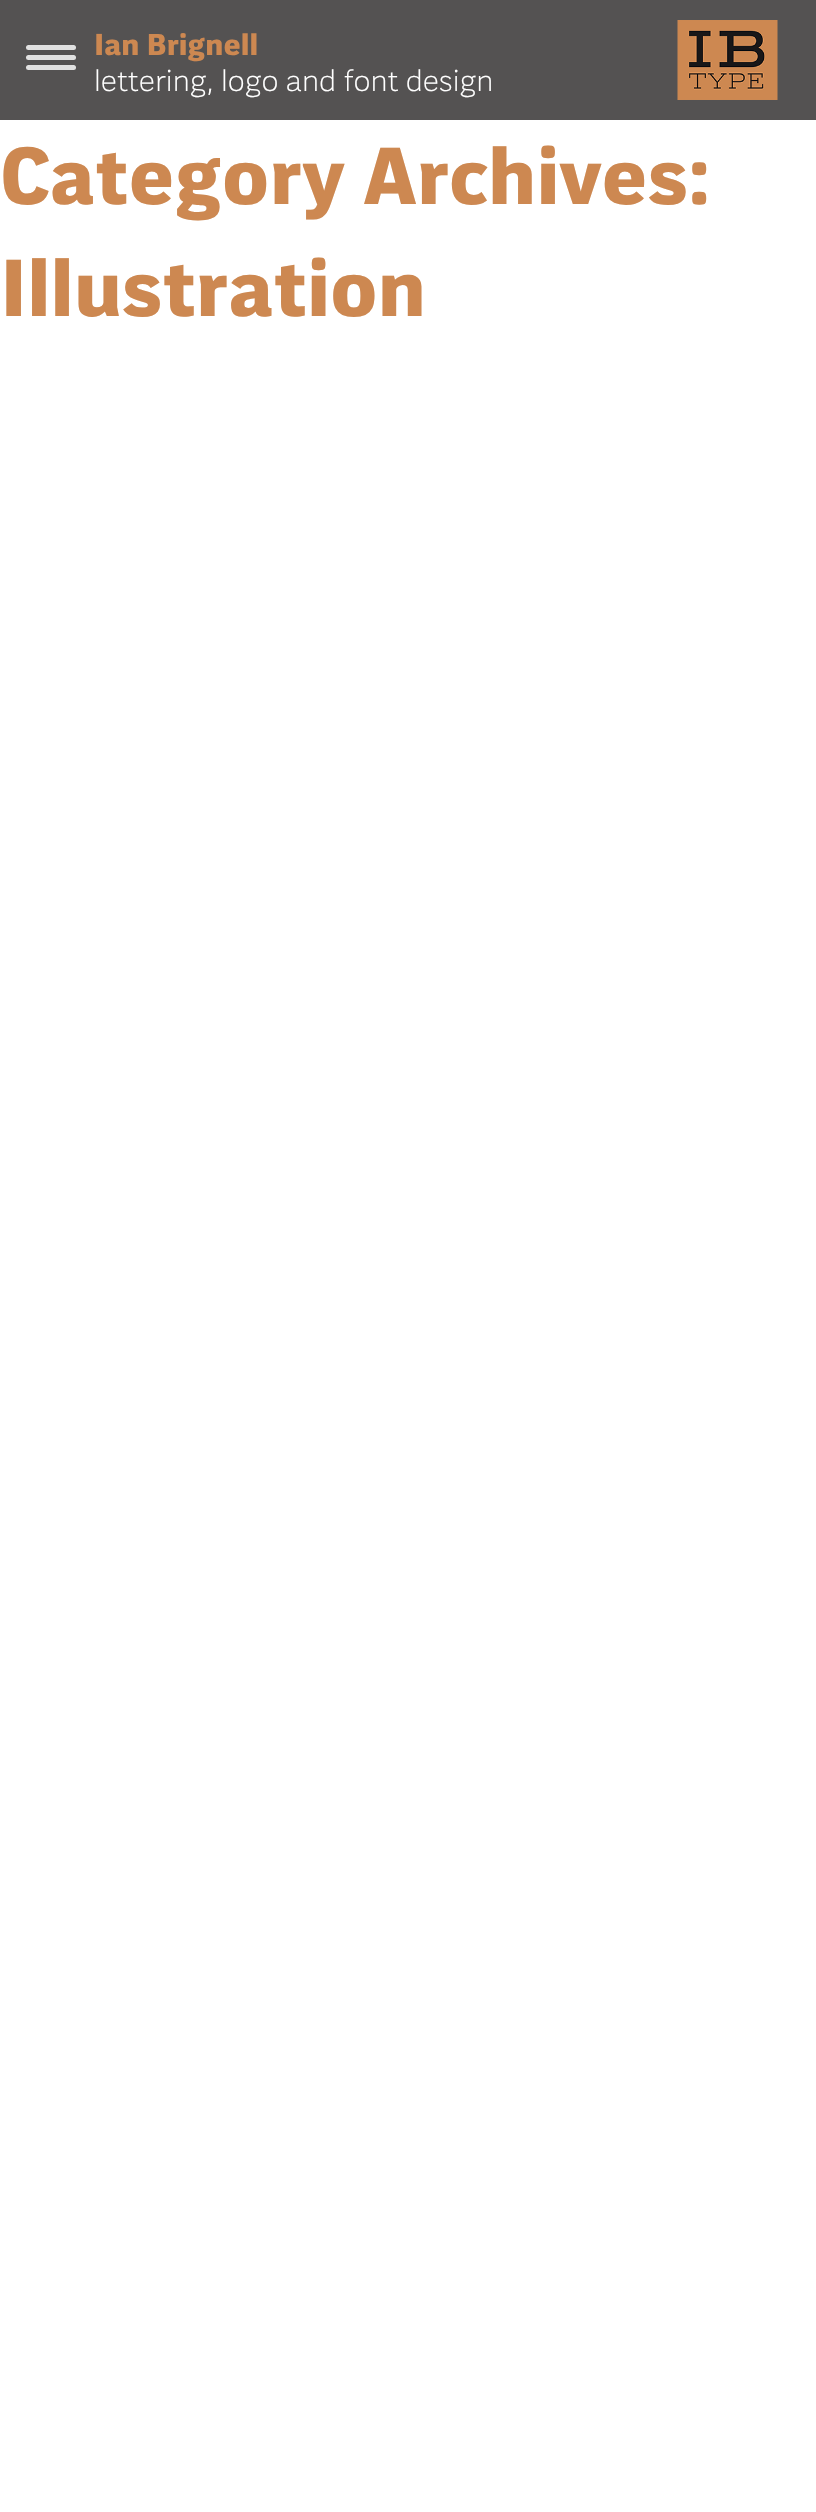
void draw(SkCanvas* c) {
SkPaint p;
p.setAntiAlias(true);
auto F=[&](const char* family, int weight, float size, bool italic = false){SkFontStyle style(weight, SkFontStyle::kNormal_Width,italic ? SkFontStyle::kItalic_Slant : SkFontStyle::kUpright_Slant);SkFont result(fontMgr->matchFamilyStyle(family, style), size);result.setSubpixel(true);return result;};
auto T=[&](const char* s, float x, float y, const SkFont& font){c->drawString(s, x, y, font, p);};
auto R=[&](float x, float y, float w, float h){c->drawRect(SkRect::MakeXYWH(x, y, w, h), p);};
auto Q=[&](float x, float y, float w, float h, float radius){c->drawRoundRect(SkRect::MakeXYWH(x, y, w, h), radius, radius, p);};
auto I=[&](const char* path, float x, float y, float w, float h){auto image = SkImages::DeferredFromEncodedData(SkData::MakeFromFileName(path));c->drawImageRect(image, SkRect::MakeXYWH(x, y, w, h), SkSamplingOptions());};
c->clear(0xffffffff);
p.setColor(0xff545252);
R(0,0,816,120);
p.setColor(0xffe1e1e1);
Q(26,45,50,5,2.5);
Q(26,55,50,5,2.5);
Q(26,65,50,5,2.5);
auto f1 = F("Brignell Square",700,30);
p.setColor(0xffcd8851);
T("Ian Brignell",94,55,f1);
auto f2 = F("Brignell Square",300,30);
p.setColor(0xffffffff);
T("lettering, logo and font design",94,91,f2);
I("1.png",677,20,101,80);
auto f3 = F("Brignell Square",700,80);
p.setColor(0xffcd8851);
T("Category Archives:",0,204,f3);
T("Illustration",0,316,f3);
}
